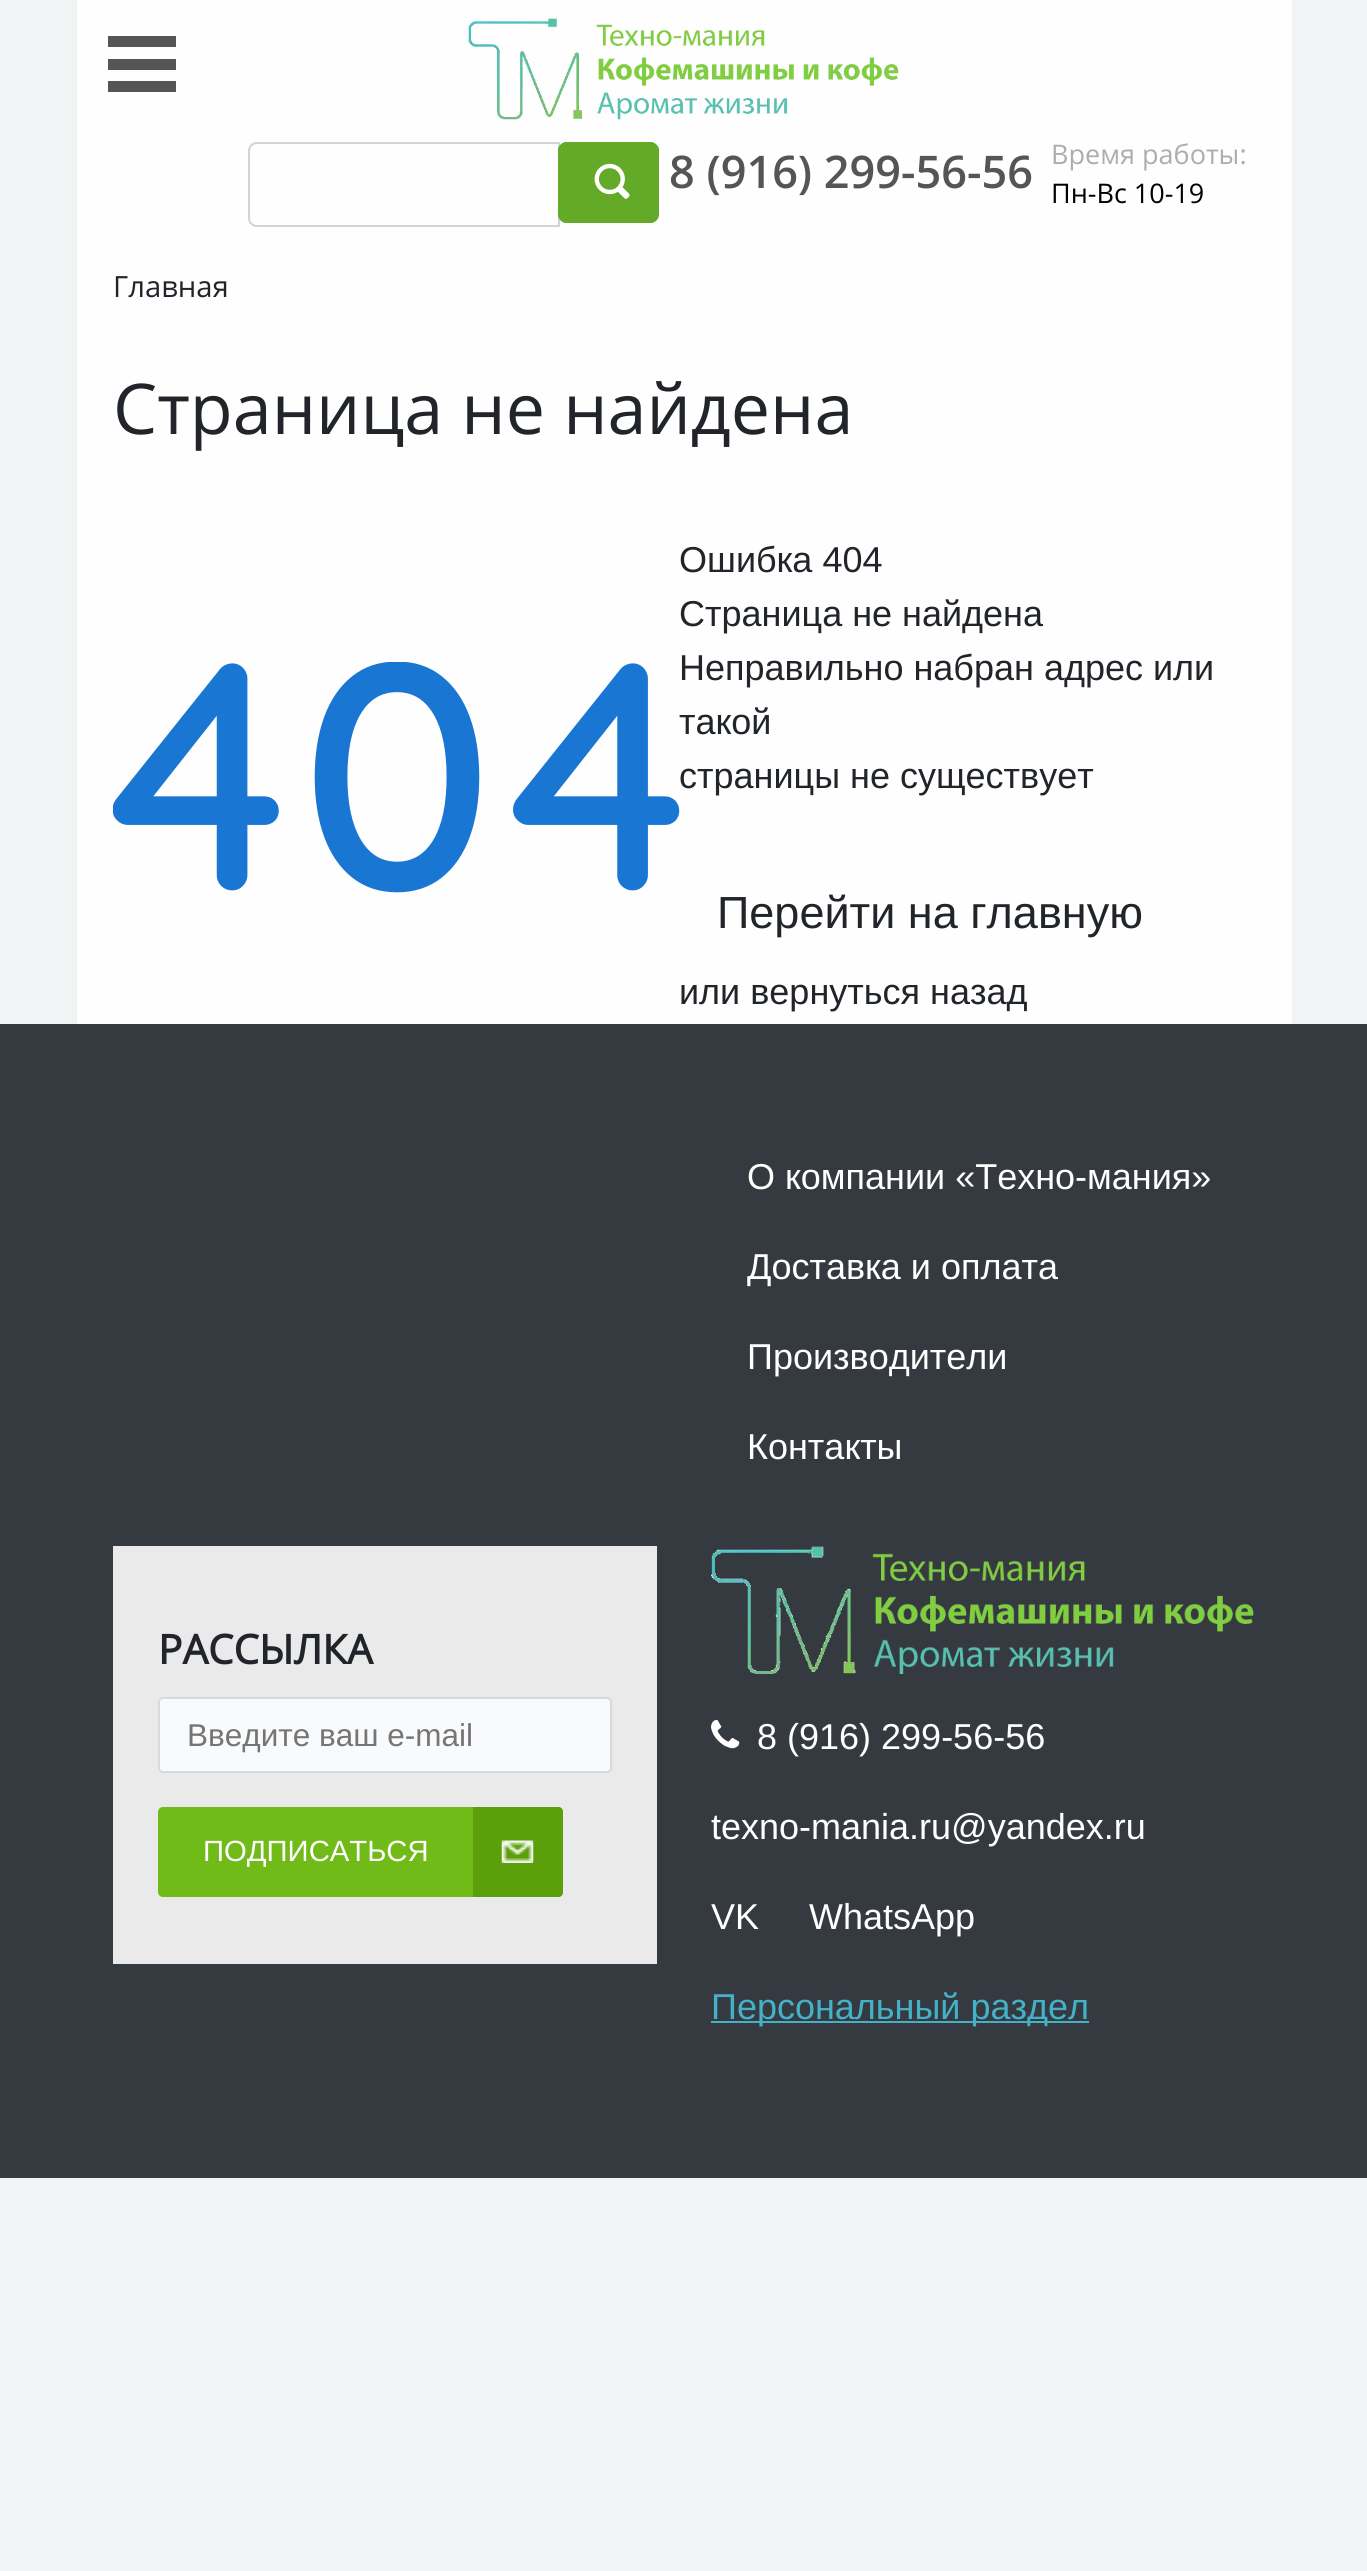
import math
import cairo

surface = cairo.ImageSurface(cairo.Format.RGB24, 1367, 2571)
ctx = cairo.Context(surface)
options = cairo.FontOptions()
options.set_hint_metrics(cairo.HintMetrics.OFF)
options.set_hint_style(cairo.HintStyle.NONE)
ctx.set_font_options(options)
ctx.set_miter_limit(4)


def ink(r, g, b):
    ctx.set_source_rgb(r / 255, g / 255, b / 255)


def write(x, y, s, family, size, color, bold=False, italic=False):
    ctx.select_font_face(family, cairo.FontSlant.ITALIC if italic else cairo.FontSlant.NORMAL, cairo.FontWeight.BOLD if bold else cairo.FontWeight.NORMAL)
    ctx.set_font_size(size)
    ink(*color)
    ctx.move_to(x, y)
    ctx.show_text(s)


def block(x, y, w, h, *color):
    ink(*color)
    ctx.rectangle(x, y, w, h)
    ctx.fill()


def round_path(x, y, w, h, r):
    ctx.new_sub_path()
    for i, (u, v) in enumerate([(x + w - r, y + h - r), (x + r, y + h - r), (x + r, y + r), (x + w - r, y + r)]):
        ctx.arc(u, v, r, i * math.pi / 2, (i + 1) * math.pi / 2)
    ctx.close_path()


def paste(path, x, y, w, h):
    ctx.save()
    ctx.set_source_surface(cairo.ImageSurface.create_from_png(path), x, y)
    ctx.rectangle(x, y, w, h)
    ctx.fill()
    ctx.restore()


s1 = dict(family="Open Sans SemiBold", size=45, color=(85, 85, 85))
s2 = dict(family="Open Sans", size=27, color=(173, 173, 173))
s3 = dict(family="Open Sans", size=27, color=(0, 0, 0))
s4 = dict(family="Open Sans", size=29.25, color=(33, 37, 41))
s5 = dict(family="Open Sans", size=70, color=(33, 37, 41))
s6 = dict(family="Liberation Sans", size=36, color=(33, 37, 41))
s7 = dict(family="Liberation Sans", size=45, color=(33, 37, 41))
s8 = dict(family="Liberation Sans", size=36, color=(255, 255, 255))
s9 = dict(family="Open Sans", size=40.5, color=(33, 37, 41), bold=True)
s10 = dict(family="Liberation Sans", size=31.5, color=(117, 117, 117))
s11 = dict(family="Liberation Sans", size=29.25, color=(255, 255, 255))
s12 = dict(family="Liberation Sans", size=36, color=(68, 177, 201))

ink(242, 243, 245)
ctx.paint()
block(77, 0, 1215, 1024, 254, 254, 255)
block(108, 36, 68, 11, 85, 85, 85)
block(108, 81, 68, 11, 85, 85, 85)
block(108, 59, 68, 11, 85, 85, 85)
paste("pic1.png", 468, 18, 431, 102)
ctx.new_path()
ctx.move_to(257, 143)
ctx.line_to(559, 143)
ctx.line_to(559, 226)
ctx.line_to(257, 226)
ctx.curve_to(252.5, 226, 249, 222.5, 249, 218)
ctx.line_to(249, 151)
ctx.curve_to(249, 146.5, 252.5, 143, 257, 143)
ctx.close_path()
ink(206, 212, 218)
ctx.stroke()
ink(99, 170, 40)
round_path(558, 142, 101, 81, 9)
ctx.fill()
paste("pic2.png", 594, 163, 36, 36)
round_path(559, 143, 99, 79, 8)
ctx.stroke()
write(669, 188, "8 (916) 299-56-56", **s1)
write(1051, 164, "Время работы:", **s2)
write(1051, 203, "Пн-Вс 10-19", **s3)
write(113, 297, "Главная", **s4)
write(113, 434, "Страница не найдена", **s5)
write(679, 734, "такой", **s6)
paste("pic3.png", 113, 662, 567, 231)
write(679, 572, "Ошибка 404", **s6)
write(679, 626, "Страница не найдена", **s6)
write(679, 680, "Неправильно набран адрес или", **s6)
write(679, 788, "страницы не существует", **s6)
write(717, 928, "Перейти на главную", **s7)
write(679, 1004, "или вернуться назад", **s6)
block(0, 1024, 1367, 1154, 52, 58, 64)
write(747, 1189, "О компании «Техно-мания»", **s8)
write(747, 1279, "Доставка и оплата", **s8)
write(747, 1369, "Производители", **s8)
write(747, 1459, "Контакты", **s8)
block(113, 1546, 544, 418, 234, 234, 235)
write(158, 1664, "РАССЫЛКА", **s9)
ink(248, 250, 252)
round_path(159, 1698, 452, 74, 4)
ctx.fill_preserve()
ink(213, 218, 220)
ctx.stroke()
write(187, 1746, "Введите ваш e-mail", **s10)
ink(112, 187, 24)
round_path(158, 1807, 405, 90, 5)
ctx.fill()
write(203, 1861, "ПОДПИСАТЬСЯ", **s11)
ink(91, 159, 11)
ctx.new_path()
ctx.move_to(473, 1807)
ctx.line_to(558, 1807)
ctx.curve_to(561, 1807, 563, 1809, 563, 1812)
ctx.line_to(563, 1892)
ctx.curve_to(563, 1895, 561, 1897, 558, 1897)
ctx.line_to(473, 1897)
ctx.close_path()
ctx.fill()
paste("pic4.png", 501, 1840, 33, 23)
paste("pic5.png", 711, 1546, 543, 128)
paste("pic6.png", 711, 1720, 29, 29)
write(757, 1749, "8 (916) 299-56-56", **s8)
write(711, 1839, "texno-mania.ru@yandex.ru", **s8)
write(711, 1929, "VK", **s8)
write(809, 1929, "WhatsApp", **s8)
block(711, 2021, 378, 2, 68, 177, 201)
write(711, 2019, "Персональный раздел", **s12)
surface.write_to_png("screenshot.png")
